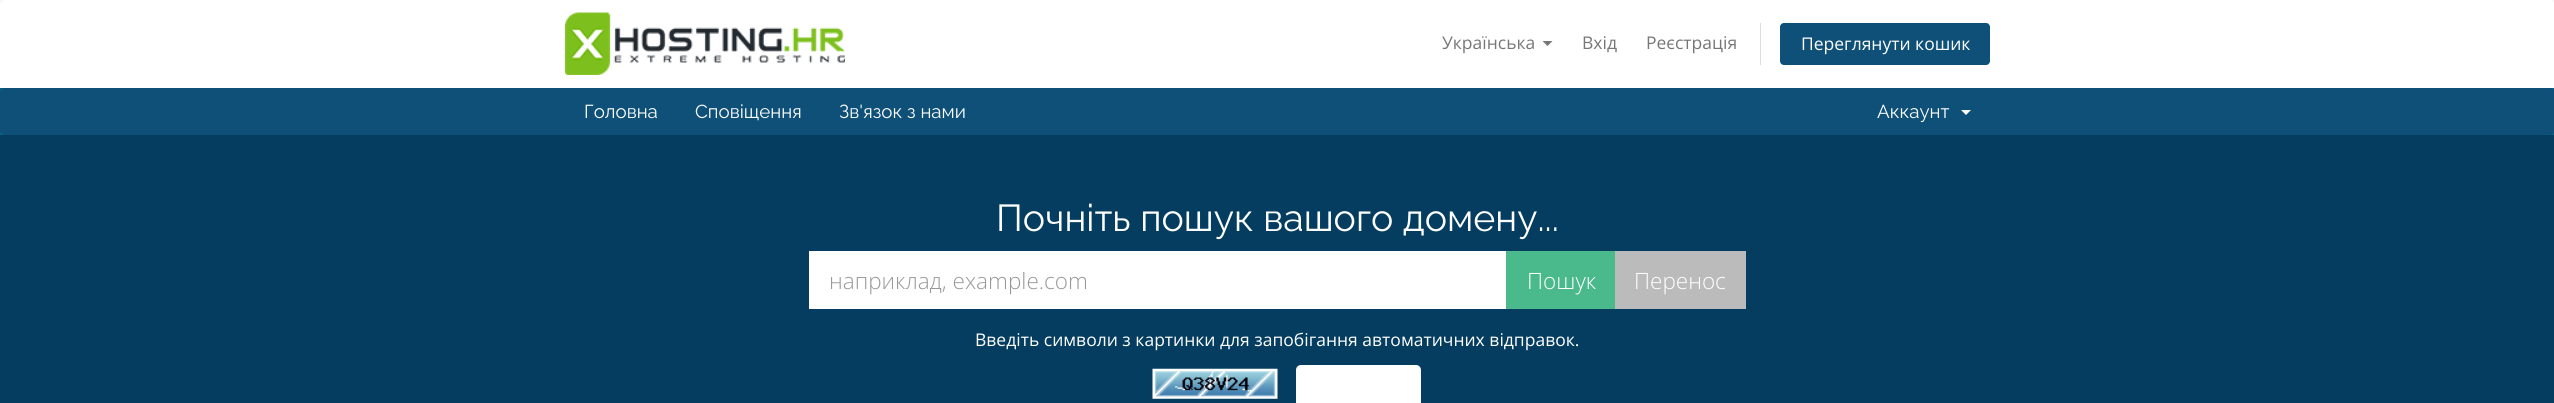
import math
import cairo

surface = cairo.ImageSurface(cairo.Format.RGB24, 2554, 403)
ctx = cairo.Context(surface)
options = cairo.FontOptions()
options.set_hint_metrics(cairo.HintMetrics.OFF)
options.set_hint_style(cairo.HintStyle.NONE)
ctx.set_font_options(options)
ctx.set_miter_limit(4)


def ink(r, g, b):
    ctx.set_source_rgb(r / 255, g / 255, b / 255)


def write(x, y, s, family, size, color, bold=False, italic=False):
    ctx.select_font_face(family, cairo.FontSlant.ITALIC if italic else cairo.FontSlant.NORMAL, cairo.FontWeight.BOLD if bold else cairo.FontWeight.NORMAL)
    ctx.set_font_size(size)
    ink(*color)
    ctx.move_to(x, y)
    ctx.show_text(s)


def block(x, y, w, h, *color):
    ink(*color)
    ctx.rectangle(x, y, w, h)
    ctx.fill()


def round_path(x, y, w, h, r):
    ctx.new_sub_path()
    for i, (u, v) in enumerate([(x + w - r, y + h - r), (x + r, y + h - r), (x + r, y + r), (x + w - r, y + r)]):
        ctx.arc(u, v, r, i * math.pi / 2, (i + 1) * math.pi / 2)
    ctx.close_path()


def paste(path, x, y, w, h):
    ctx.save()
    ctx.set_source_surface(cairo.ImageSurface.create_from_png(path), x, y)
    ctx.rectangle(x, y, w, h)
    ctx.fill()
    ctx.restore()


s1 = dict(family="Open Sans", size=17.5, color=(119, 119, 119))
s2 = dict(family="Open Sans", size=17.5, color=(255, 255, 255))
s3 = dict(family="Raleway", size=18.75, color=(255, 255, 255))
s4 = dict(family="Raleway", size=37.5, color=(255, 255, 255))
s5 = dict(family="Open Sans Light", size=22.5, color=(153, 153, 153))
s6 = dict(family="Open Sans Light", size=22.5, color=(255, 255, 255))

ink(248, 248, 248)
ctx.paint()
ink(255, 255, 255)
ctx.new_path()
ctx.move_to(6, 0)
ctx.line_to(2549, 0)
ctx.curve_to(2552.5, 0, 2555, 2.5, 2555, 6)
ctx.line_to(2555, 88)
ctx.line_to(0, 88)
ctx.line_to(0, 6)
ctx.curve_to(0, 2.5, 2.5, 0, 6, 0)
ctx.close_path()
ctx.fill()
paste("pic1.png", 565, 12, 280, 63)
write(1442, 49, "Українська", **s1)
ctx.new_path()
ctx.move_to(1542.5, 41)
ctx.line_to(1552.5, 41)
ctx.line_to(1547.5, 46)
ctx.close_path()
ctx.fill()
write(1582, 49, "Вхід", **s1)
write(1646, 49, "Реєстрація", **s1)
block(1760, 23, 1, 42, 221, 221, 221)
ink(14, 80, 119)
round_path(1780, 23, 210, 42, 4)
ctx.fill()
write(1801, 50, "Переглянути кошик", **s2)
block(0, 88, 2554, 47, 0, 102, 135)
ink(14, 80, 119)
round_path(0, 88, 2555, 47, 5)
ctx.fill()
write(584, 118, "Головна", **s3)
write(695, 118, "Сповіщення", **s3)
write(839, 118, "Зв'язок з нами", **s3)
write(1877, 118, "Аккаунт", **s3)
ctx.new_path()
ctx.move_to(1961, 110)
ctx.line_to(1971, 110)
ctx.line_to(1966, 115)
ctx.close_path()
ctx.fill()
block(0, 135, 2554, 268, 4, 61, 95)
write(996, 231, "Почніть пошук вашого домену...", **s4)
block(809, 251, 697, 58, 255, 255, 255)
write(829, 289, "наприклад, example.com", **s5)
block(1506, 251, 109, 58, 74, 185, 139)
write(1527, 289, "Пошук", **s6)
block(1615, 251, 131, 58, 187, 187, 187)
write(1634, 289, "Перенос", **s6)
write(975, 346, "Введіть символи з картинки для запобігання автоматичних відправок.", **s2)
paste("pic2.png", 1152, 368, 126, 31)
round_path(1296, 365, 125, 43, 5)
ctx.fill()
surface.write_to_png("screenshot.png")
